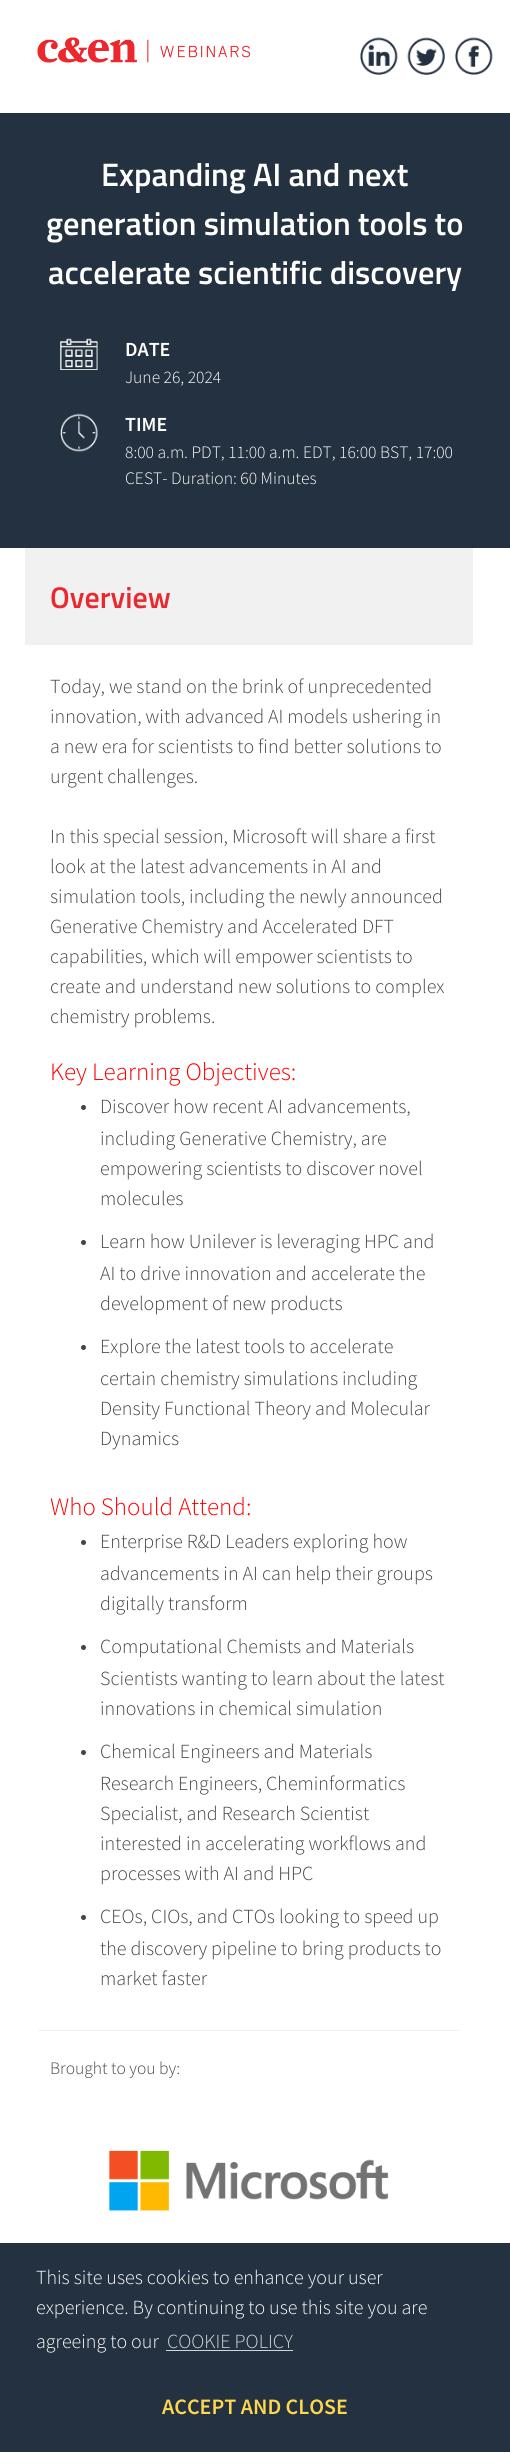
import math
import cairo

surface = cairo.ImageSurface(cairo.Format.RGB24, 510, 2452)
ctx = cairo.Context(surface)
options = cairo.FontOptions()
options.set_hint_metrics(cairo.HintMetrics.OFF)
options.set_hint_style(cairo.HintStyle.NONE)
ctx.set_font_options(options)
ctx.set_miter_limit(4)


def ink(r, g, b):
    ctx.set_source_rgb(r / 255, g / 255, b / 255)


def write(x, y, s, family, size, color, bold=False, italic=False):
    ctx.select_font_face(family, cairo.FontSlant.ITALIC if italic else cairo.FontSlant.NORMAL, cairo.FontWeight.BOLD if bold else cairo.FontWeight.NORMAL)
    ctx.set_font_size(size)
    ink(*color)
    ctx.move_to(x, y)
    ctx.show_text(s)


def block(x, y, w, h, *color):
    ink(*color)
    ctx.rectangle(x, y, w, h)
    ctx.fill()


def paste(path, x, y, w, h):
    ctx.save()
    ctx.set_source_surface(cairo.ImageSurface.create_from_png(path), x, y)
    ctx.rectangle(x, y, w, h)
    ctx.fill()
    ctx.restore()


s1 = dict(family="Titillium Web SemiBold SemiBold", size=32.5, color=(255, 255, 255))
s2 = dict(family="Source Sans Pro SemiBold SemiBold", size=20, color=(255, 255, 255))
s3 = dict(family="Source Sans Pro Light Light", size=17.5, color=(255, 255, 255))
s4 = dict(family="Titillium Web SemiBold SemiBold", size=30, color=(236, 39, 45))
s5 = dict(family="Source Sans Pro Light Light", size=20, color=(68, 68, 68))
s6 = dict(family="Source Sans Pro Light Light", size=25, color=(255, 0, 0))
s7 = dict(family="Source Sans Pro Light Light", size=17.5, color=(68, 68, 68))
s8 = dict(family="Source Sans Pro Light Light", size=20, color=(255, 255, 255))
s9 = dict(family="Source Sans Pro Light Light", size=20, color=(211, 214, 217))
s10 = dict(family="Source Sans Pro SemiBold SemiBold", size=22, color=(253, 215, 77))

ink(255, 255, 255)
ctx.paint()
paste("pic1.png", 37, 37, 213, 26)
paste("pic2.png", 360, 37, 38, 38)
paste("pic3.png", 407, 37, 38, 38)
paste("pic4.png", 455, 37, 38, 38)
block(0, 113, 510, 435, 36, 49, 64)
write(101, 186, "Expanding AI and next", **s1)
write(46, 235, "generation simulation tools to", **s1)
write(48, 284, "accelerate scientific discovery", **s1)
paste("pic5.png", 60, 338, 38, 32)
write(125, 356, "DATE", **s2)
write(125, 383, "June 26, 2024", **s3)
paste("pic6.png", 60, 413, 38, 39)
write(125, 431, "TIME", **s2)
write(125, 458, "8:00 a.m. PDT, 11:00 a.m. EDT, 16:00 BST, 17:00", **s3)
write(125, 484, "CEST- Duration: 60 Minutes", **s3)
block(25, 548, 448, 97, 241, 241, 241)
write(50, 608, "Overview", **s4)
write(50, 693, "Today, we stand on the brink of unprecedented", **s5)
write(50, 723, "innovation, with advanced AI models ushering in", **s5)
write(50, 753, "a new era for scientists to find better solutions to", **s5)
write(50, 783, "urgent challenges.", **s5)
write(50, 843, "In this special session, Microsoft will share a first", **s5)
write(50, 873, "look at the latest advancements in AI and", **s5)
write(50, 903, "simulation tools, including the newly announced", **s5)
write(50, 933, "Generative Chemistry and Accelerated DFT", **s5)
write(50, 963, "capabilities, which will empower scientists to", **s5)
write(50, 993, "create and understand new solutions to complex", **s5)
write(50, 1023, "chemistry problems.", **s5)
write(50, 1080, "Key Learning Objectives:", **s6)
ink(68, 68, 68)
ctx.new_path()
ctx.arc(83.5, 1107.5, 2.5, 0, 2 * math.pi)
ctx.fill()
write(100, 1113, "Discover how recent AI advancements,", **s5)
write(100, 1145, "including Generative Chemistry, are", **s5)
write(100, 1175, "empowering scientists to discover novel", **s5)
write(100, 1205, "molecules", **s5)
ctx.new_path()
ctx.arc(83.5, 1242.5, 2.5, 0, 2 * math.pi)
ctx.fill()
write(100, 1248, "Learn how Unilever is leveraging HPC and", **s5)
write(100, 1280, "AI to drive innovation and accelerate the", **s5)
write(100, 1310, "development of new products", **s5)
ctx.new_path()
ctx.arc(83.5, 1347.5, 2.5, 0, 2 * math.pi)
ctx.fill()
write(100, 1353, "Explore the latest tools to accelerate", **s5)
write(100, 1385, "certain chemistry simulations including", **s5)
write(100, 1415, "Density Functional Theory and Molecular", **s5)
write(100, 1445, "Dynamics", **s5)
write(50, 1515, "Who Should Attend:", **s6)
ink(68, 68, 68)
ctx.new_path()
ctx.arc(83.5, 1542.5, 2.5, 0, 2 * math.pi)
ctx.fill()
write(100, 1548, "Enterprise R&D Leaders exploring how", **s5)
write(100, 1580, "advancements in AI can help their groups", **s5)
write(100, 1610, "digitally transform", **s5)
ctx.new_path()
ctx.arc(83.5, 1647.5, 2.5, 0, 2 * math.pi)
ctx.fill()
write(100, 1653, "Computational Chemists and Materials", **s5)
write(100, 1685, "Scientists wanting to learn about the latest", **s5)
write(100, 1715, "innovations in chemical simulation", **s5)
ctx.new_path()
ctx.arc(83.5, 1752.5, 2.5, 0, 2 * math.pi)
ctx.fill()
write(100, 1758, "Chemical Engineers and Materials", **s5)
write(100, 1790, "Research Engineers, Cheminformatics", **s5)
write(100, 1820, "Specialist, and Research Scientist", **s5)
write(100, 1850, "interested in accelerating workflows and", **s5)
write(100, 1880, "processes with AI and HPC", **s5)
ctx.new_path()
ctx.arc(83.5, 1917.5, 2.5, 0, 2 * math.pi)
ctx.fill()
write(100, 1923, "CEOs, CIOs, and CTOs looking to speed up", **s5)
write(100, 1955, "the discovery pipeline to bring products to", **s5)
write(100, 1985, "market faster", **s5)
block(38, 2030, 422, 1, 241, 241, 241)
write(50, 2074, "Brought to you by:", **s7)
paste("pic7.png", 108, 2150, 281, 61)
block(0, 2243, 510, 209, 36, 49, 64)
write(36, 2284, "This site uses cookies to enhance your user", **s8)
write(36, 2314, "experience. By continuing to use this site you are", **s8)
write(36, 2348, "agreeing to our", **s8)
write(167, 2348, "COOKIE POLICY", **s9)
block(166, 2350, 127, 1, 211, 214, 217)
write(162, 2414, "ACCEPT AND CLOSE", **s10)
surface.write_to_png("screenshot.png")
